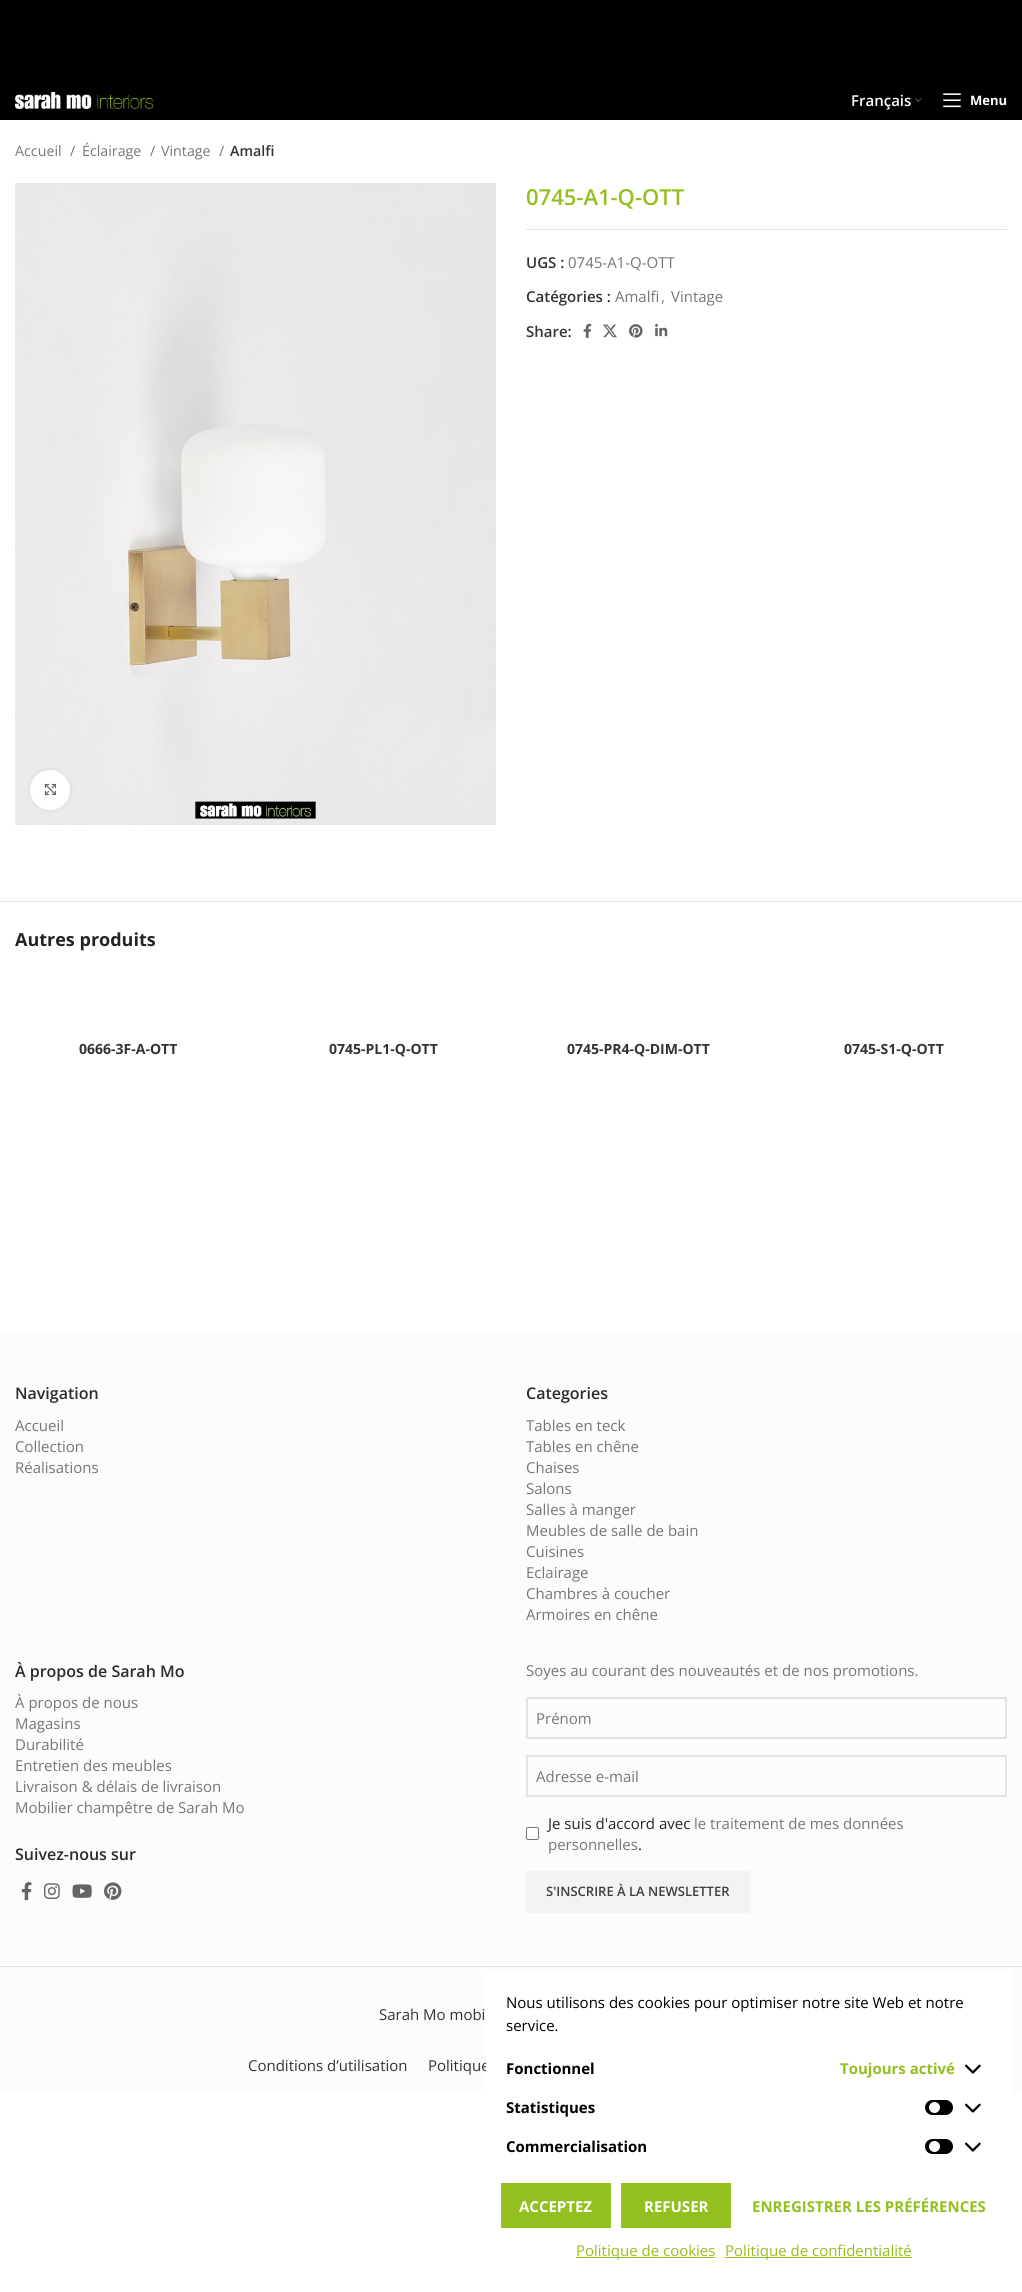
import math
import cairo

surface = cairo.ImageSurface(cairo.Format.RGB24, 1022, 2292)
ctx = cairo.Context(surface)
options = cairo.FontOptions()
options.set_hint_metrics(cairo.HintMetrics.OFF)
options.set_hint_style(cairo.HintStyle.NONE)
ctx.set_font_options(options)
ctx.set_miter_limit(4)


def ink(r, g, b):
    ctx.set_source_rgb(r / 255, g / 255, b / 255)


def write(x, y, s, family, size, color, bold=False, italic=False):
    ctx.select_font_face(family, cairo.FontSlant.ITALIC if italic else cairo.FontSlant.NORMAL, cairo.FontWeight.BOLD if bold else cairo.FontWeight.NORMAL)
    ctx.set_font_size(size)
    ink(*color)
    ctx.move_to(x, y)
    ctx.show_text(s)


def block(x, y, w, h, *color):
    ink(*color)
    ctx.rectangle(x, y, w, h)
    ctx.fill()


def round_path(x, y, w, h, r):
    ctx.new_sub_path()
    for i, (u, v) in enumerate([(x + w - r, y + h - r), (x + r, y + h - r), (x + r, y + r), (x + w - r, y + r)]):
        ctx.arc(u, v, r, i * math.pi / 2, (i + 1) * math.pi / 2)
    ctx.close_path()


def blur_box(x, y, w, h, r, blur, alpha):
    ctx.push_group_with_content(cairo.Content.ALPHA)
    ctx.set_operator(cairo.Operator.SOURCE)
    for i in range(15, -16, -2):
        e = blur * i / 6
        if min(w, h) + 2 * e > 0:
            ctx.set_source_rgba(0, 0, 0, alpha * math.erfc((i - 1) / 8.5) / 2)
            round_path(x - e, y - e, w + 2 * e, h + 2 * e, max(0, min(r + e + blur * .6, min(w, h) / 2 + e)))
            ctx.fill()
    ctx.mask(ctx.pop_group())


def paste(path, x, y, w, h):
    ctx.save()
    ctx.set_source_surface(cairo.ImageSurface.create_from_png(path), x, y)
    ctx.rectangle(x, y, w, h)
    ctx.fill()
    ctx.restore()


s1 = dict(family="Open Sans SemiBold", size=15, color=(255, 255, 255))
s2 = dict(family="Open Sans", size=13, color=(255, 255, 255), bold=True)
s3 = dict(family="Open Sans", size=14.25, color=(118, 118, 118))
s4 = dict(family="Open Sans SemiBold", size=14.25, color=(51, 51, 51))
s5 = dict(family="Open Sans SemiBold", size=22, color=(147, 192, 31))
s6 = dict(family="Open Sans SemiBold", size=15, color=(51, 51, 51))
s7 = dict(family="Open Sans", size=15, color=(118, 118, 118))
s8 = dict(family="Open Sans", size=18, color=(36, 36, 36), bold=True)
s9 = dict(family="Open Sans", size=14, color=(51, 51, 51), bold=True)
s10 = dict(family="Open Sans SemiBold", size=16, color=(45, 42, 42))
s11 = dict(family="Open Sans", size=15, color=(36, 36, 36))
s12 = dict(family="Open Sans SemiBold", size=13, color=(62, 62, 62))
s13 = dict(family="Open Sans", size=15, color=(51, 51, 51))
s14 = dict(family="Open Sans", size=15, color=(0, 0, 0))
s15 = dict(family="Open Sans", size=15, color=(0, 0, 0), bold=True)
s16 = dict(family="Open Sans", size=15, color=(147, 192, 31), bold=True)
s17 = dict(family="Open Sans", size=15, color=(255, 255, 255), bold=True)
s18 = dict(family="Open Sans", size=15, color=(147, 192, 31))

ink(255, 255, 255)
ctx.paint()
block(0, 0, 1022, 120, 0, 0, 0)
paste("pic1.png", 15, 92, 138, 17)
write(851, 106, "Français", **s1)
paste("pic2.png", 915, 98, 7, 4)
paste("pic3.png", 943, 93, 18, 15)
write(970, 105, "Menu", **s2)
write(15, 156, "Accueil", **s3)
write(70, 156, "/", **s3)
write(82, 156, "Éclairage", **s3)
write(150, 156, "/", **s3)
write(161, 156, "Vintage", **s3)
write(219, 156, "/", **s3)
write(230, 156, "Amalfi", **s4)
paste("pic4.png", 15, 183, 481, 642)
ink(0, 0, 0)
blur_box(30, 770, 40, 40, 20, 2.5, 0.08)
ink(255, 255, 255)
ctx.arc(50, 790, 20, 0, 2 * math.pi)
ctx.fill()
paste("pic5.png", 44, 783, 12, 13)
write(526, 205, "0745-A1-Q-OTT", **s5)
block(526, 229, 481, 1, 228, 228, 228)
write(526, 268, "UGS :", **s6)
write(568, 268, "0745-A1-Q-OTT", **s7)
write(526, 302, "Catégories :", **s6)
write(615, 302, "Amalfi", **s7)
write(661, 302, ",", **s7)
write(671, 302, "Vintage", **s7)
write(526, 337, "Share:", **s6)
paste("pic6.png", 583, 323, 9, 15)
paste("pic7.png", 603, 324, 14, 14)
paste("pic8.png", 629, 324, 14, 14)
paste("pic9.png", 655, 323, 13, 14)
block(0, 901, 1022, 1, 228, 228, 228)
write(15, 946, "Autres produits", **s8)
write(79, 1054, "0666-3F-A-OTT", **s9)
write(329, 1054, "0745-PL1-Q-OTT", **s9)
write(567, 1054, "0745-PR4-Q-DIM-OTT", **s9)
write(844, 1054, "0745-S1-Q-OTT", **s9)
block(0, 1332, 1022, 762, 252, 252, 252)
write(15, 1399, "Navigation", **s10)
write(15, 1431, "Accueil", **s7)
write(15, 1452, "Collection", **s7)
write(15, 1473, "Réalisations", **s7)
write(526, 1399, "Categories", **s10)
write(526, 1431, "Tables en teck", **s7)
write(526, 1452, "Tables en chêne", **s7)
write(526, 1473, "Chaises", **s7)
write(526, 1494, "Salons", **s7)
write(526, 1515, "Salles à manger", **s7)
write(526, 1536, "Meubles de salle de bain", **s7)
write(526, 1557, "Cuisines", **s7)
write(526, 1578, "Eclairage", **s7)
write(526, 1599, "Chambres à coucher", **s7)
write(526, 1620, "Armoires en chêne", **s7)
write(15, 1677, "À propos de Sarah Mo", **s10)
write(15, 1708, "À propos de nous", **s7)
write(15, 1729, "Magasins", **s7)
write(15, 1750, "Durabilité", **s7)
write(15, 1771, "Entretien des meubles", **s7)
write(15, 1792, "Livraison & délais de livraison", **s7)
write(15, 1813, "Mobilier champêtre de Sarah Mo", **s7)
write(15, 1860, "Suivez-nous sur", **s10)
paste("pic10.png", 21, 1882, 11, 19)
paste("pic11.png", 44, 1883, 16, 16)
paste("pic12.png", 72, 1884, 20, 14)
paste("pic13.png", 104, 1882, 18, 18)
write(526, 1676, "Soyes au courant des nouveautés et de nos promotions.", **s7)
ctx.rectangle(527, 1698, 479, 40)
ink(227, 227, 227)
ctx.stroke()
write(536, 1724, "Prénom", **s7)
ctx.rectangle(527, 1756, 479, 40)
ink(227, 227, 227)
ctx.stroke()
write(536, 1782, "Adresse e-mail", **s7)
ink(255, 255, 255)
round_path(526.5, 1827.5, 12, 12, 1.5)
ctx.fill_preserve()
ink(118, 118, 118)
ctx.set_line_width(1)
ctx.stroke()
write(548, 1829, "Je suis d'accord avec", **s11)
write(694, 1829, "le traitement de mes données", **s7)
write(548, 1850, "personnelles", **s7)
write(638, 1850, ".", **s11)
block(526, 1871, 224, 42, 243, 243, 243)
write(546, 1896, "S'INSCRIRE À LA NEWSLETTER", **s12)
block(0, 1966, 1022, 1, 225, 225, 225)
write(379, 2020, "Sarah Mo mobi", **s13)
write(248, 2071, "Conditions d’utilisation", **s13)
write(428, 2071, "Politique", **s13)
block(486, 1971, 526, 123, 255, 255, 255)
write(506, 2008, "Nous utilisons des cookies pour optimiser notre site Web et notre", **s14)
write(506, 2031, "service.", **s14)
write(506, 2074, "Fonctionnel", **s15)
write(840, 2074, "Toujours activé", **s16)
paste("pic14.png", 965, 2064, 16, 10)
write(506, 2113, "Statistiques", **s15)
round_path(925, 2100, 28, 15, 7.5)
ctx.fill()
ink(255, 255, 255)
ctx.arc(934.5, 2107.5, 5.5, 0, 2 * math.pi)
ctx.fill()
paste("pic14.png", 965, 2103, 16, 10)
write(506, 2152, "Commercialisation", **s15)
round_path(925, 2139, 28, 15, 7.5)
ctx.fill()
ink(255, 255, 255)
ctx.arc(934.5, 2146.5, 5.5, 0, 2 * math.pi)
ctx.fill()
paste("pic14.png", 965, 2142, 16, 10)
block(501, 2183, 110, 45, 147, 192, 31)
write(519, 2212, "ACCEPTEZ", **s17)
block(621, 2183, 110, 45, 147, 192, 31)
write(644, 2212, "REFUSER", **s17)
write(752, 2212, "ENREGISTRER LES PRÉFÉRENCES", **s16)
block(576, 2257, 139, 1, 147, 192, 31)
write(576, 2256, "Politique de cookies", **s18)
block(725, 2257, 187, 1, 147, 192, 31)
write(725, 2256, "Politique de confidentialité", **s18)
surface.write_to_png("screenshot.png")
